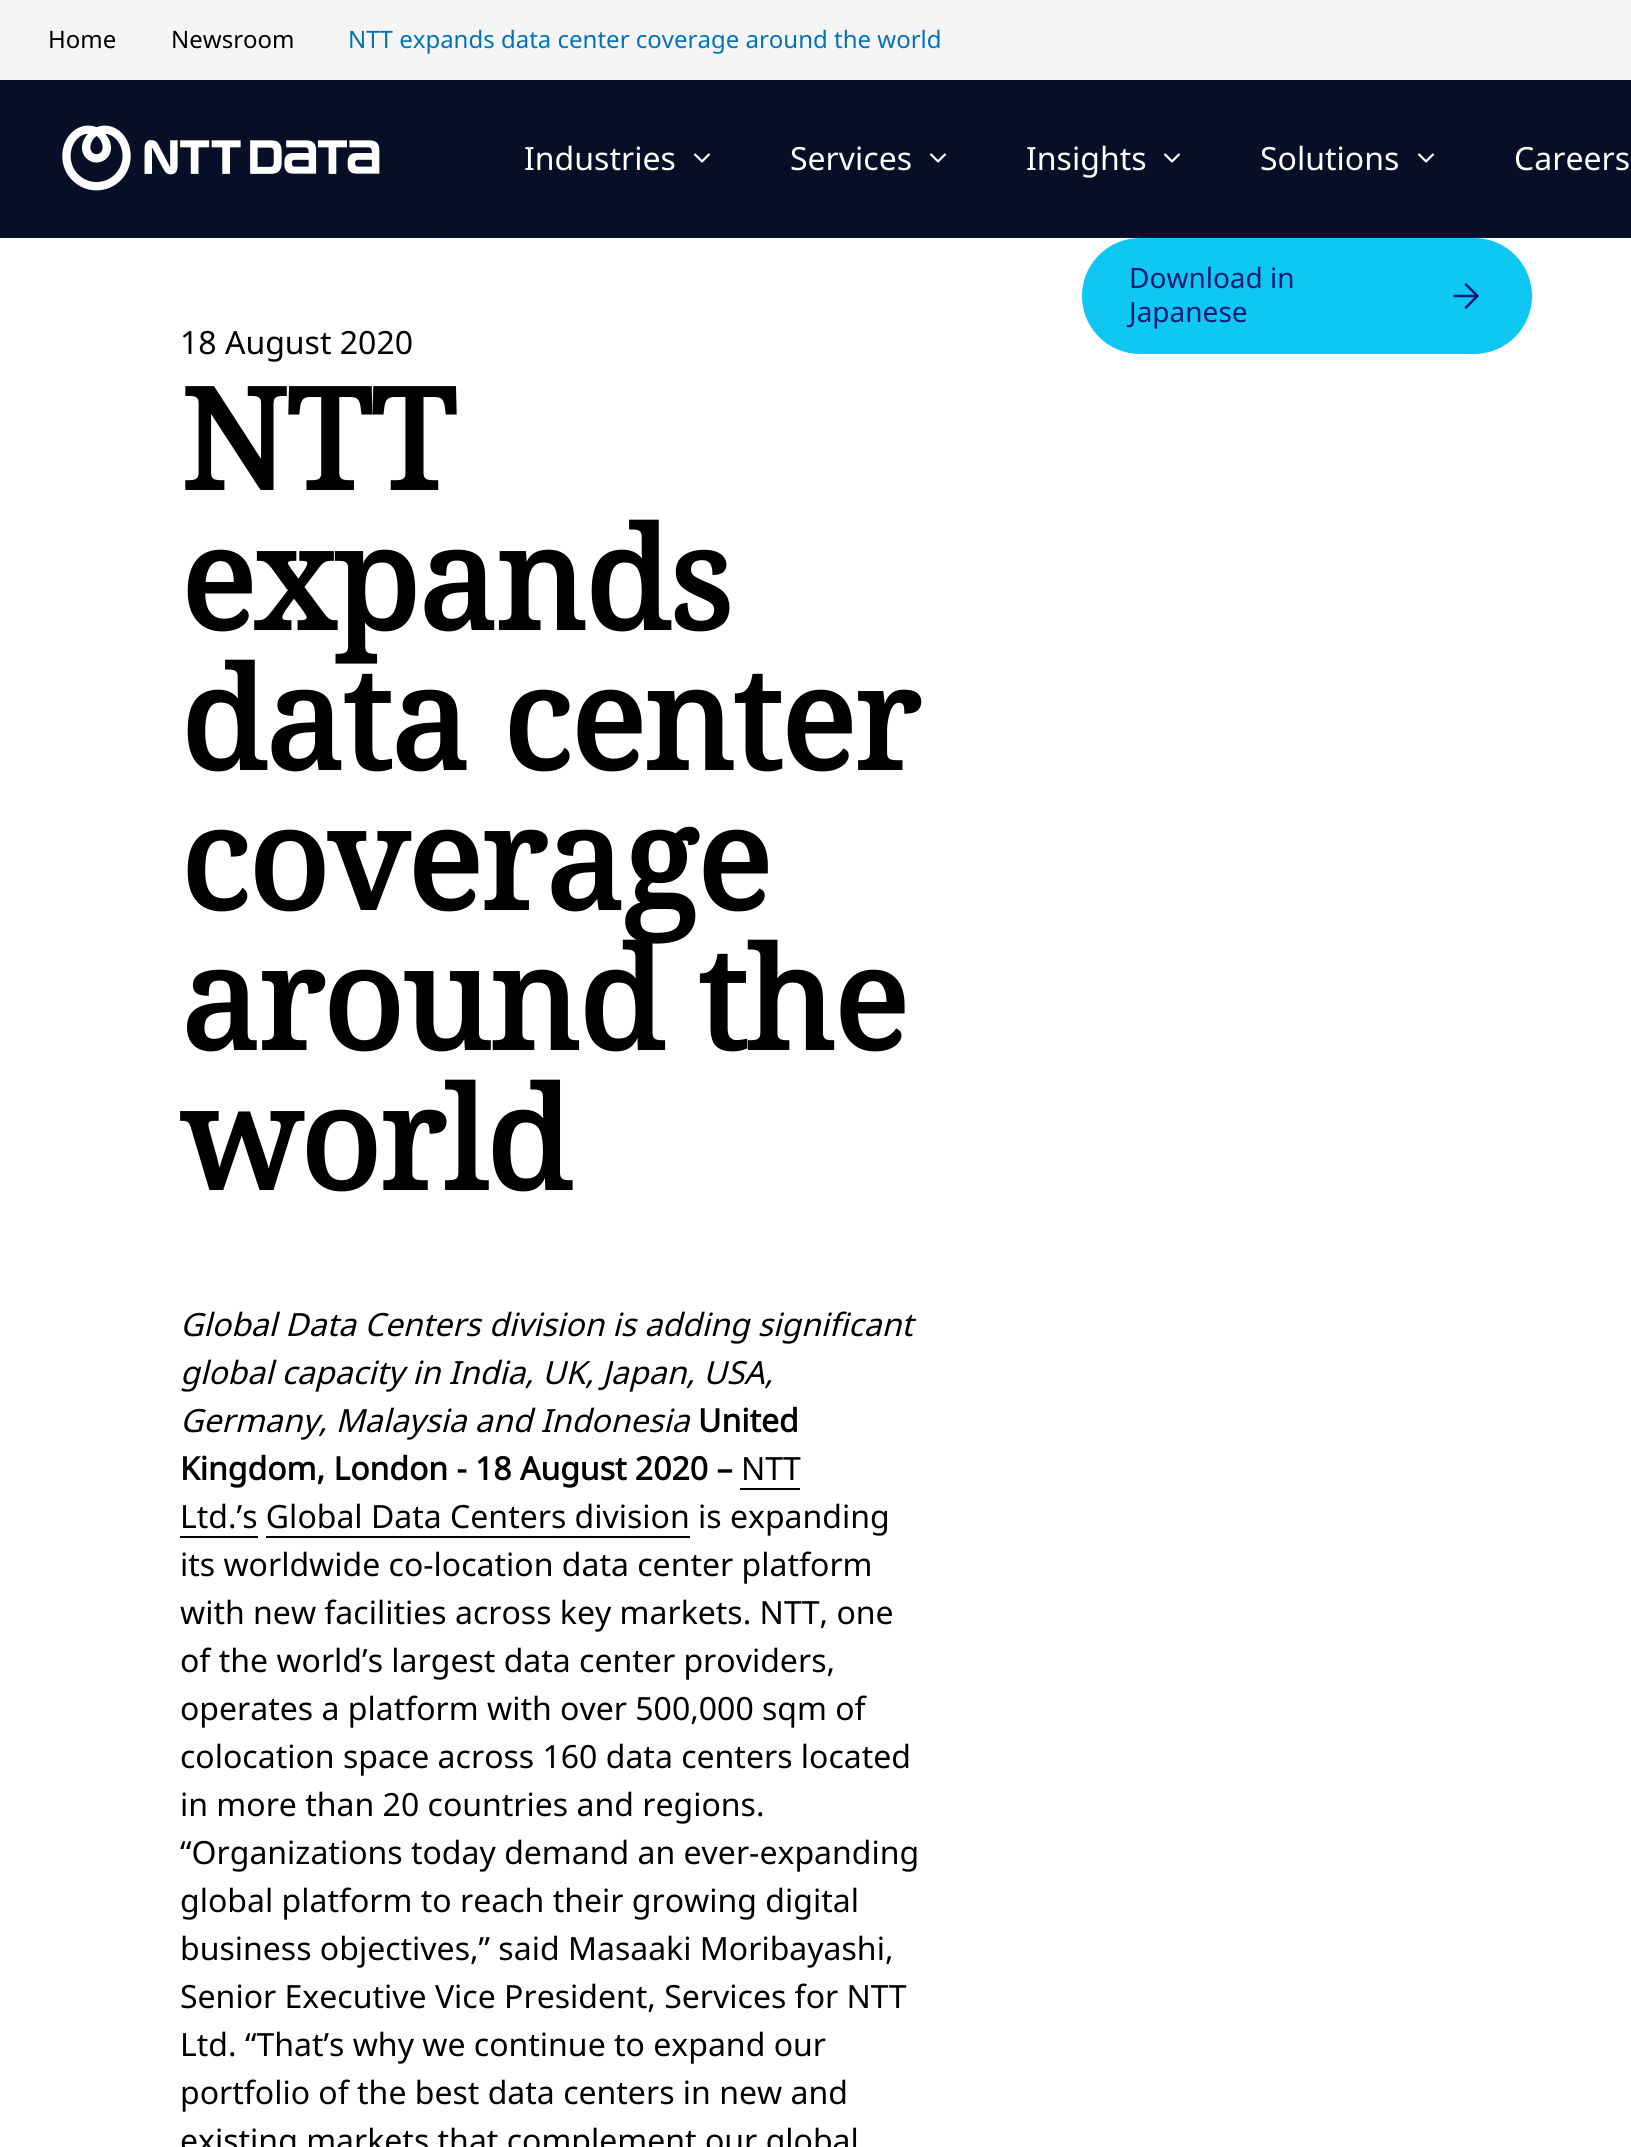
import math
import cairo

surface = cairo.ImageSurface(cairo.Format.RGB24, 1631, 2147)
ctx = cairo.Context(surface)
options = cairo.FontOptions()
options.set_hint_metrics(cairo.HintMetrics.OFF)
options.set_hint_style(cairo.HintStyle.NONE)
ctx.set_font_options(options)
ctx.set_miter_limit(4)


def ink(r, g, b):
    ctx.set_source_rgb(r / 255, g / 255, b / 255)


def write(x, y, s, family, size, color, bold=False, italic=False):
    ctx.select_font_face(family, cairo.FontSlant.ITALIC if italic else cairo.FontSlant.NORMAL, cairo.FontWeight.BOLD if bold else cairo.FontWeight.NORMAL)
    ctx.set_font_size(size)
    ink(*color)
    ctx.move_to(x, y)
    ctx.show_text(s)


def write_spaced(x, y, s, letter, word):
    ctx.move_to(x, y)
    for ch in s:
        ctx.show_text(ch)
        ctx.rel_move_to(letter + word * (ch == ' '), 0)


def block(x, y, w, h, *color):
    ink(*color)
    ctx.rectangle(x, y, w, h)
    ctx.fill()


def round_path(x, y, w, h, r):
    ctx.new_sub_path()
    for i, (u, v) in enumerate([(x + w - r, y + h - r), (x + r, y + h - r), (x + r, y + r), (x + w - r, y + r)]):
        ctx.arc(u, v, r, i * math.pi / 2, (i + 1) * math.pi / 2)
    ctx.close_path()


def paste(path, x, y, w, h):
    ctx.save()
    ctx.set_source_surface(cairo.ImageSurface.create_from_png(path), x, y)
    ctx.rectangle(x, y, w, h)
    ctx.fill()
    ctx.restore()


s1 = dict(family="Noto Sans", size=24, color=(0, 0, 0))
s2 = dict(family="Noto Sans", size=24, color=(0, 114, 188))
s3 = dict(family="Noto Sans", size=32, color=(255, 255, 255))
s4 = dict(family="Noto Sans", size=28, color=(0, 25, 115))
s5 = dict(family="Noto Sans", size=32, color=(0, 0, 0))
s6 = dict(family="Noto Sans", size=32, color=(0, 0, 0), italic=True)
s7 = dict(family="Noto Sans", size=32, color=(0, 0, 0), bold=True)

ink(255, 255, 255)
ctx.paint()
block(0, 0, 1631, 80, 245, 245, 245)
write(48, 48, "Home", **s1)
write(171, 48, "Newsroom", **s1)
write(348, 48, "NTT expands data center coverage around the world", **s2)
block(0, 80, 1631, 156, 7, 15, 38)
block(0, 236, 1631, 2, 6, 17, 53)
block(442, 80, 2, 156, 6, 17, 53)
paste("pic1.png", 62, 125, 318, 66)
write(524, 170, "Industries", **s3)
paste("pic2.png", 694, 153, 16, 10)
write(790, 170, "Services", **s3)
paste("pic2.png", 930, 153, 16, 10)
write(1026, 170, "Insights", **s3)
paste("pic2.png", 1164, 153, 16, 10)
write(1260, 170, "Solutions", **s3)
paste("pic2.png", 1418, 153, 16, 10)
write(1514, 170, "Careers", **s3)
ink(15, 200, 242)
round_path(1082, 238, 450, 116, 58)
ctx.fill()
write(1129, 288, "Download in", **s4)
write(1129, 322, "Japanese", **s4)
ctx.new_path()
ctx.move_to(1454.5, 296)
ctx.line_to(1477.5, 296)
ctx.move_to(1466, 284.5)
ctx.line_to(1477.5, 296)
ctx.line_to(1466, 307.5)
ink(1, 25, 114)
ctx.set_line_width(2.5)
ctx.set_line_cap(cairo.LineCap.ROUND)
ctx.set_line_join(cairo.LineJoin.ROUND)
ctx.stroke()
write(180, 354, "18 August 2020", **s5)
ctx.select_font_face("Noto Serif", cairo.FontSlant.NORMAL, cairo.FontWeight.BOLD)
ctx.set_font_size(140)
write_spaced(180, 490, "NTT", -1.4, 0)
write_spaced(180, 630, "expands", -1.4, 0)
write_spaced(180, 770, "data center", -1.4, 0)
write_spaced(180, 910, "coverage", -1.4, 0)
write_spaced(180, 1050, "around the", -1.4, 0)
write_spaced(180, 1190, "world", -1.4, 0)
write(180, 1336, "Global Data Centers division is adding significant", **s6)
write(180, 1384, "global capacity in India, UK, Japan, USA,", **s6)
write(180, 1432, "Germany, Malaysia and Indonesia", **s6)
write(698, 1432, "United", **s7)
write(180, 1480, "Kingdom, London - 18 August 2020 –", **s7)
write(741, 1480, "NTT", **s5)
block(740, 1488, 60, 2, 0, 0, 0)
write(180, 1528, "Ltd.’s Global Data Centers division", **s5)
block(180, 1536, 78, 2, 0, 0, 0)
write(698, 1528, "is expanding", **s5)
block(266, 1536, 424, 2, 0, 0, 0)
write(180, 1576, "its worldwide co-location data center platform", **s5)
write(180, 1624, "with new facilities across key markets. NTT, one", **s5)
write(180, 1672, "of the world’s largest data center providers,", **s5)
write(180, 1720, "operates a platform with over 500,000 sqm of", **s5)
write(180, 1768, "colocation space across 160 data centers located", **s5)
write(180, 1816, "in more than 20 countries and regions.", **s5)
write(180, 1864, "“Organizations today demand an ever-expanding", **s5)
write(180, 1912, "global platform to reach their growing digital", **s5)
write(180, 1960, "business objectives,” said Masaaki Moribayashi,", **s5)
write(180, 2008, "Senior Executive Vice President, Services for NTT", **s5)
write(180, 2056, "Ltd. “That’s why we continue to expand our", **s5)
write(180, 2104, "portfolio of the best data centers in new and", **s5)
write(180, 2152, "existing markets that complement our global", **s5)
surface.write_to_png("screenshot.png")
